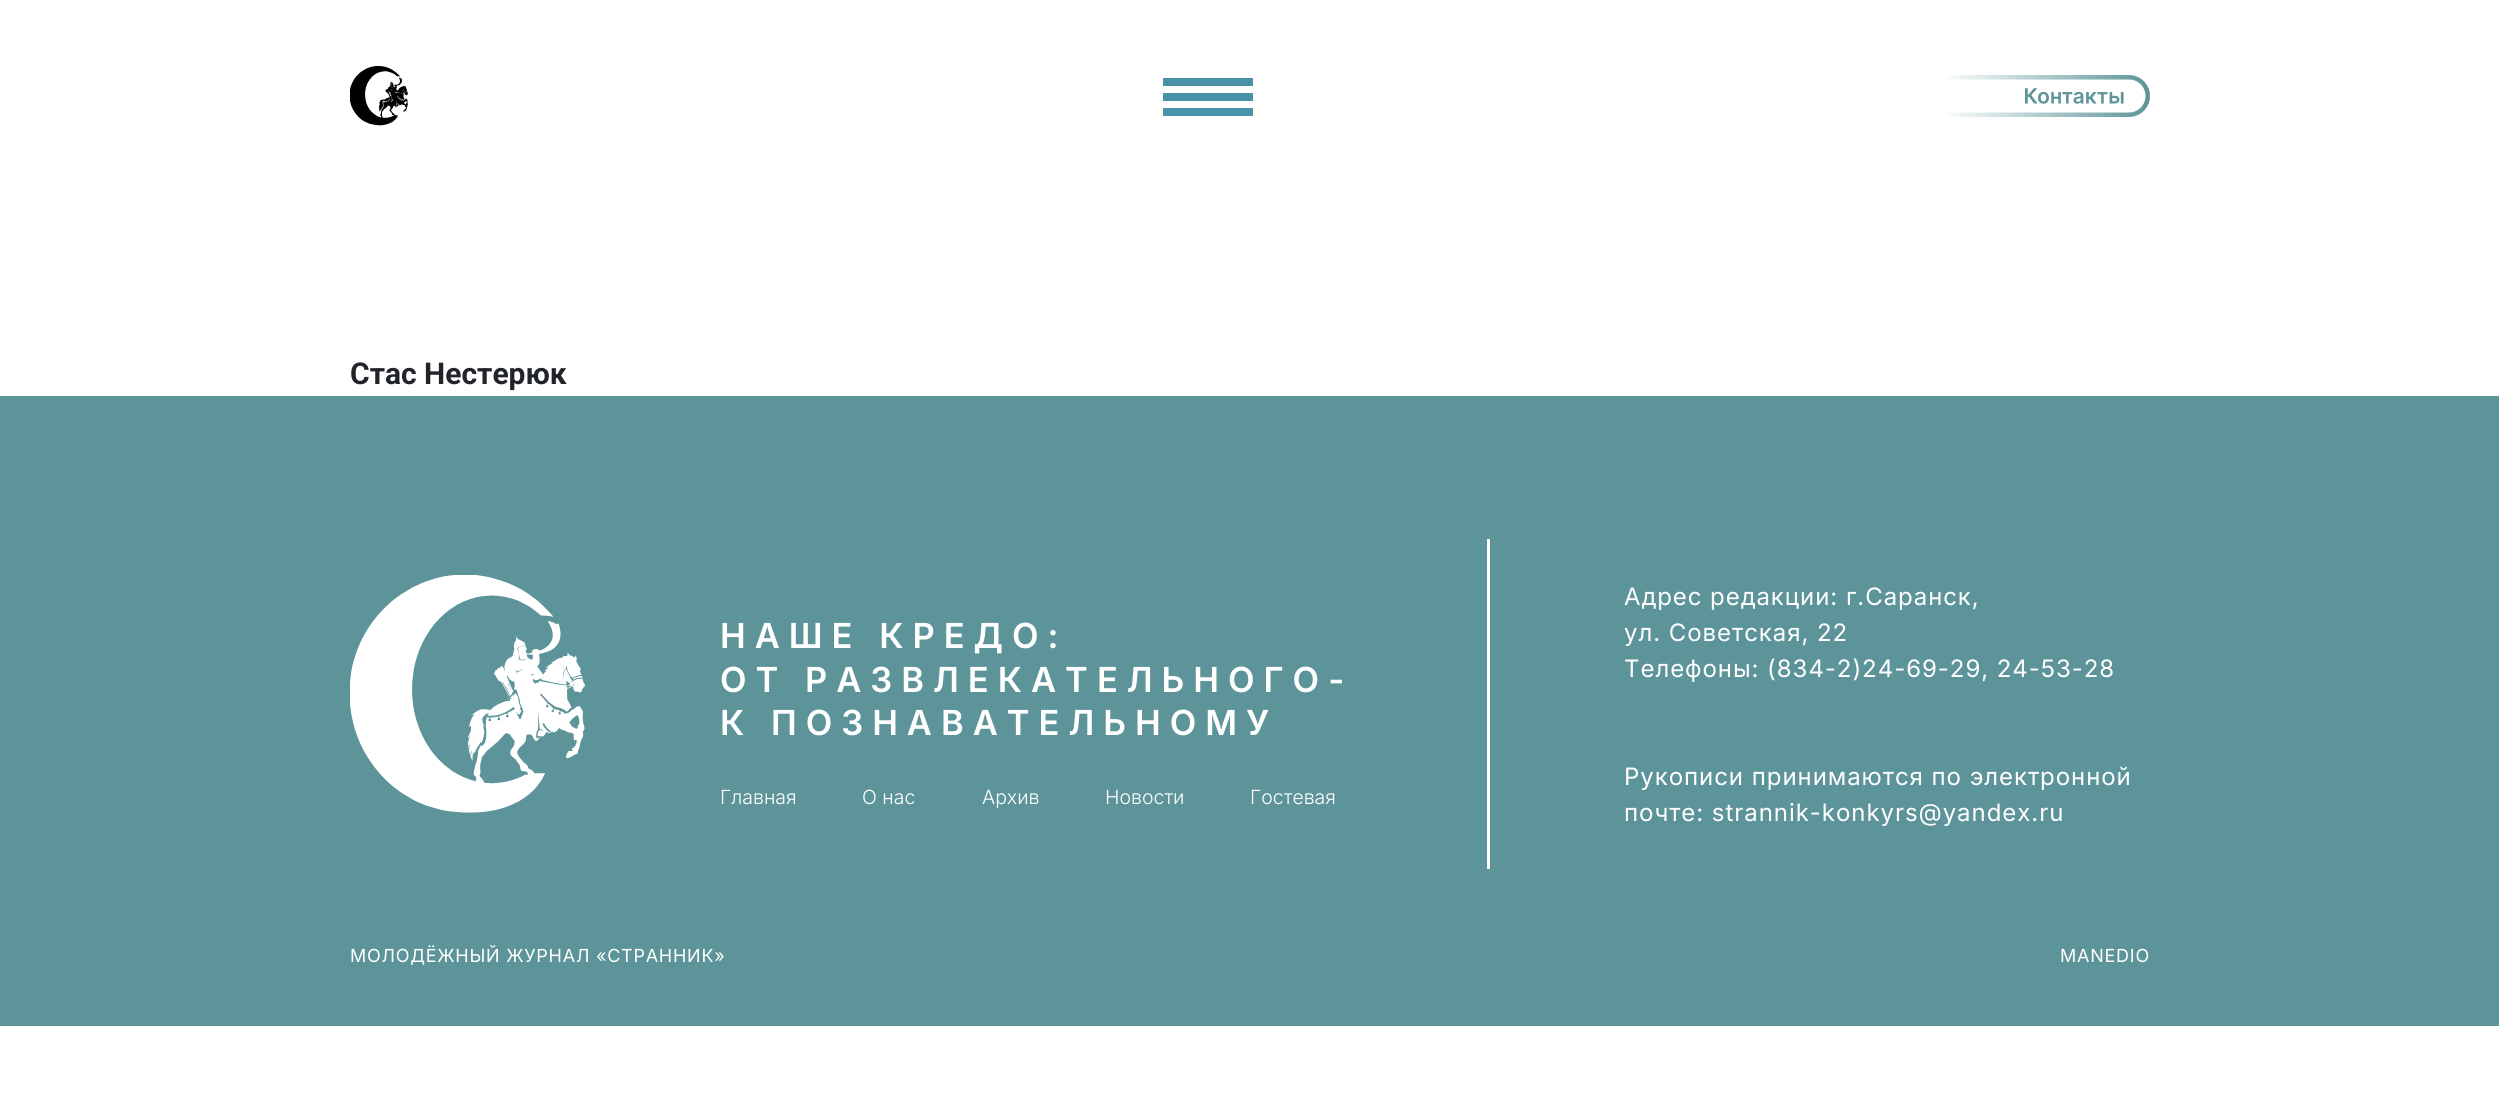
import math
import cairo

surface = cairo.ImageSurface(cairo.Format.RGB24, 2499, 1102)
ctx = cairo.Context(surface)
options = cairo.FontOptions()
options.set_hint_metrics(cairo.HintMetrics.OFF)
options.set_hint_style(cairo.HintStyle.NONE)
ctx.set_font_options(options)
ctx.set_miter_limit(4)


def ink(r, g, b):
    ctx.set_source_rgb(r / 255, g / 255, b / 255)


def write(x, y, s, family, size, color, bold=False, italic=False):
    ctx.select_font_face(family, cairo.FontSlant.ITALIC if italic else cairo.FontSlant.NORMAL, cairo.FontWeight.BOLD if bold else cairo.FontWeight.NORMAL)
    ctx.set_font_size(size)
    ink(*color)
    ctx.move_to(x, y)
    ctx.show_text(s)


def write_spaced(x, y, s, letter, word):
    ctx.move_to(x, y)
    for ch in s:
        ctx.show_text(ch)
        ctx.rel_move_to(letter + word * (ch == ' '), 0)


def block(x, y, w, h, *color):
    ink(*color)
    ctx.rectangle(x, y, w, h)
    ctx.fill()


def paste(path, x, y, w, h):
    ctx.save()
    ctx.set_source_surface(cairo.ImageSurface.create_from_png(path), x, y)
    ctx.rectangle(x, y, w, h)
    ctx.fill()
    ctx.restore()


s1 = dict(family="Roboto", size=30, color=(33, 37, 41), bold=True)
s2 = dict(family="Inter Light", size=19.5, color=(255, 255, 255))

ink(255, 255, 255)
ctx.paint()
paste("pic1.png", 350, 66, 58, 60)
block(1163, 93, 90, 8, 74, 146, 168)
block(1163, 78, 90, 8, 74, 146, 168)
block(1163, 108, 90, 8, 74, 146, 168)
paste("pic2.png", 1946, 75, 204, 42)
write(350, 384, "Стас Нестерюк", **s1)
block(0, 396, 2499, 630, 92, 148, 153)
paste("pic3.png", 350, 575, 235, 238)
ctx.select_font_face("Inter SemiBold")
ctx.set_font_size(34.5)
ink(255, 255, 255)
write_spaced(720, 648, "НАШЕ КРЕДО:", 9, 0)
write_spaced(720, 692, "ОТ РАЗВЛЕКАТЕЛЬНОГО-", 9, 0)
write_spaced(720, 735, "К ПОЗНАВАТЕЛЬНОМУ", 9, 0)
write(720, 804, "Главная", **s2)
write(862, 804, "О нас", **s2)
write(982, 804, "Архив", **s2)
write(1105, 804, "Новости", **s2)
write(1250, 804, "Гостевая", **s2)
block(1487, 539, 3, 330, 255, 255, 255)
ctx.select_font_face("Inter")
ctx.set_font_size(24)
write_spaced(1624, 605, "Адрес редакции: г.Саранск,", 0.95, 0)
write_spaced(1624, 641, "ул. Советская, 22", 0.95, 0)
write_spaced(1624, 677, "Телефоны: (834-2)24-69-29, 24-53-28", 0.95, 0)
write_spaced(1624, 785, "Рукописи принимаются по электронной", 0.95, 0)
write_spaced(1624, 821, "почте: strannik-konkyrs@yandex.ru", 0.95, 0)
ctx.set_font_size(18)
write_spaced(350, 962, "МОЛОДЁЖНЫЙ ЖУРНАЛ «СТРАННИК»", 0.75, 0)
write_spaced(2060, 962, "MANEDIO", 0.75, 0)
surface.write_to_png("screenshot.png")
